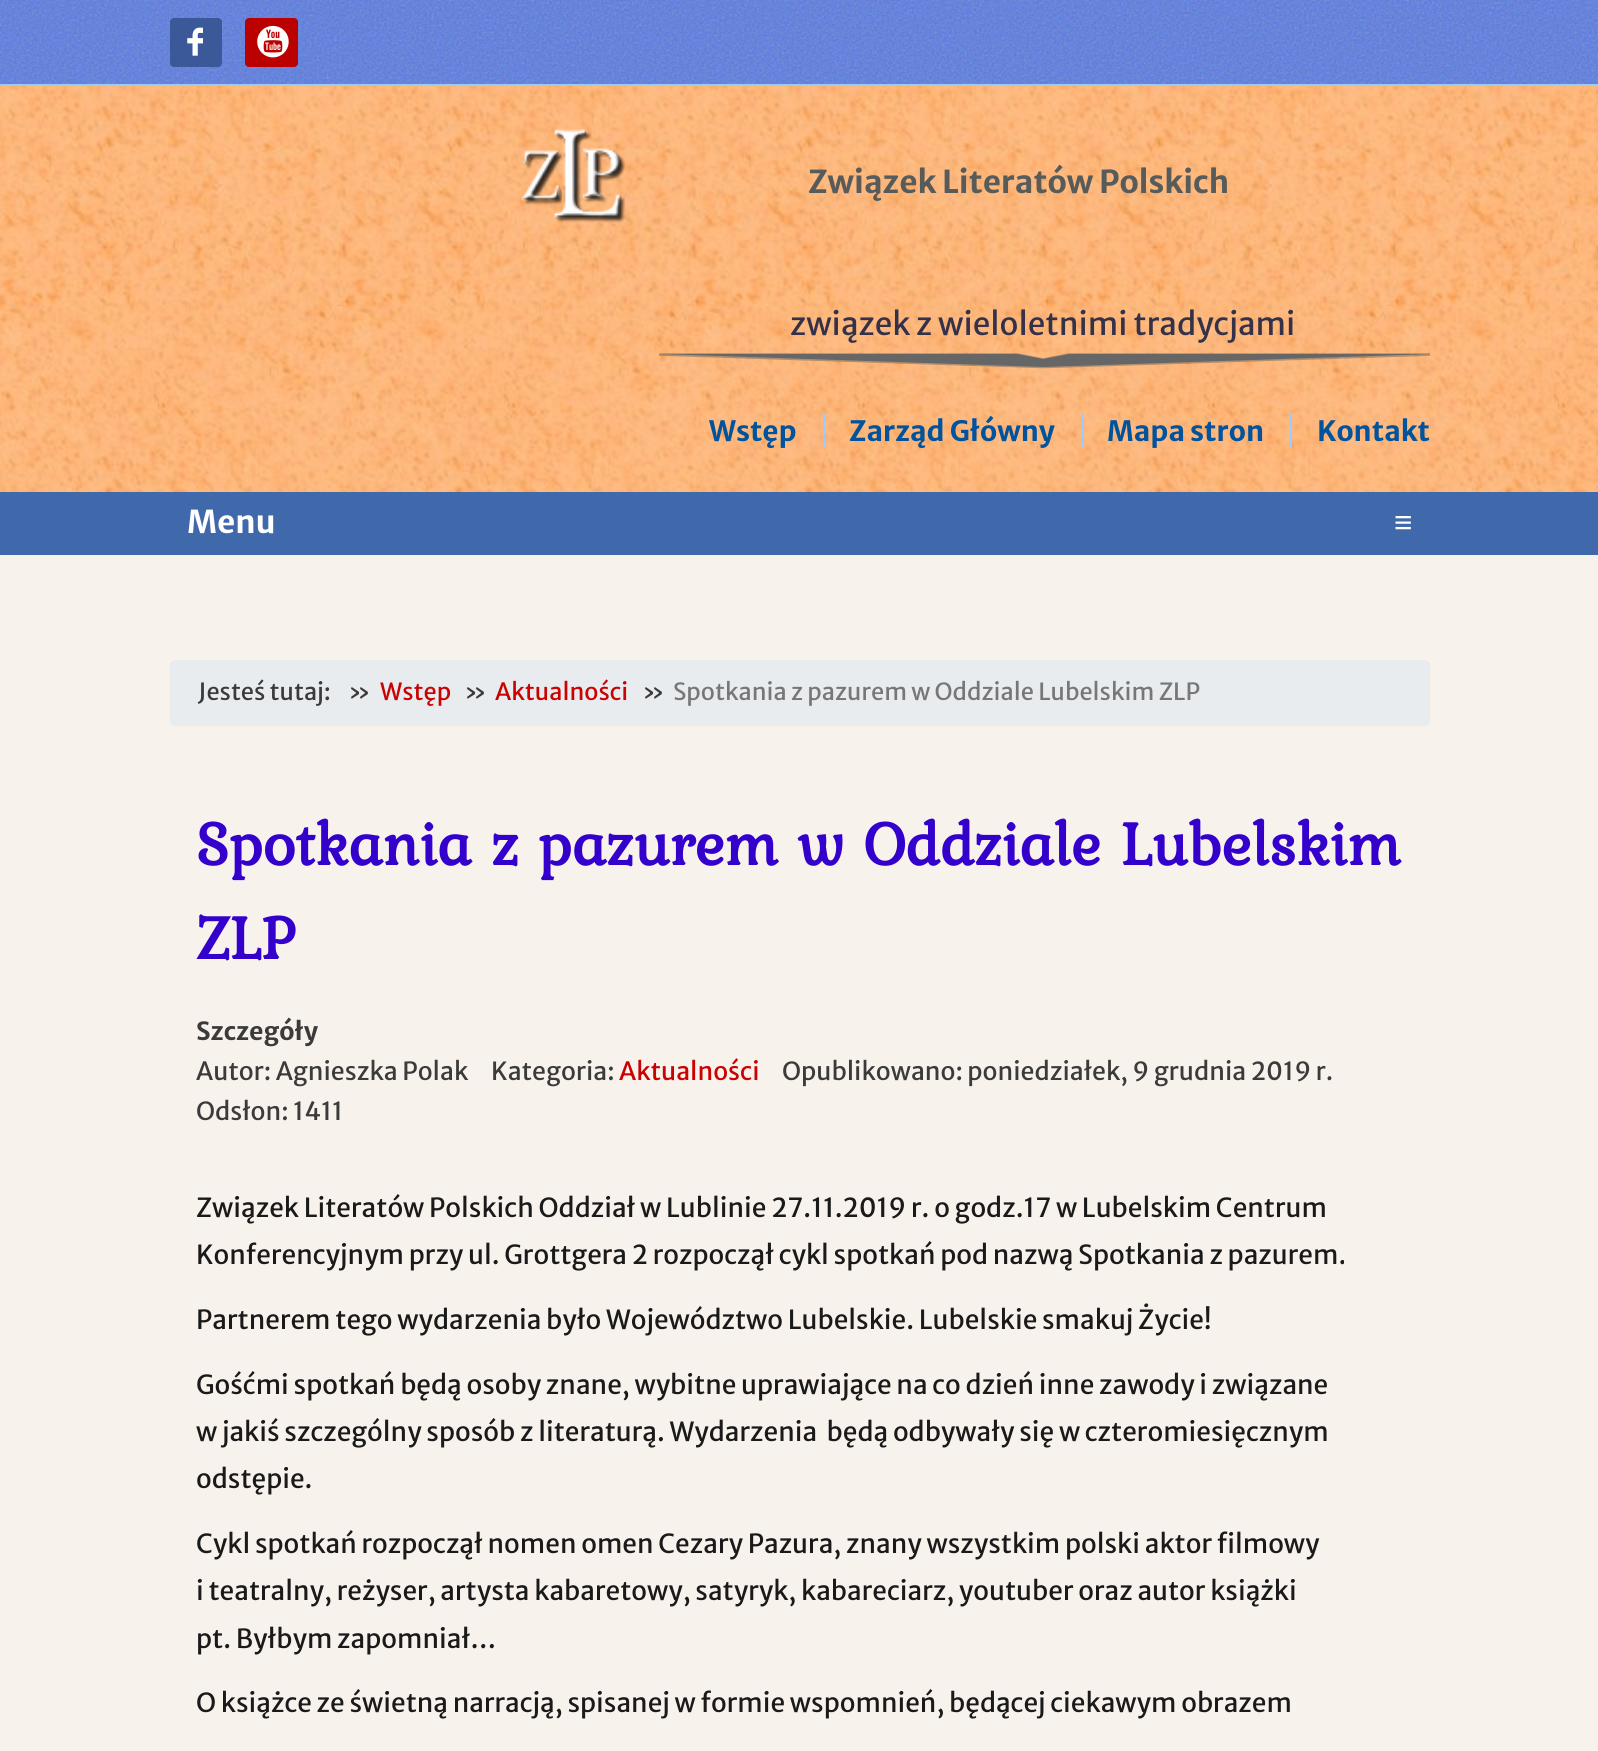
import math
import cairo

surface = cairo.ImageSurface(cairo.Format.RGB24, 1598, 1751)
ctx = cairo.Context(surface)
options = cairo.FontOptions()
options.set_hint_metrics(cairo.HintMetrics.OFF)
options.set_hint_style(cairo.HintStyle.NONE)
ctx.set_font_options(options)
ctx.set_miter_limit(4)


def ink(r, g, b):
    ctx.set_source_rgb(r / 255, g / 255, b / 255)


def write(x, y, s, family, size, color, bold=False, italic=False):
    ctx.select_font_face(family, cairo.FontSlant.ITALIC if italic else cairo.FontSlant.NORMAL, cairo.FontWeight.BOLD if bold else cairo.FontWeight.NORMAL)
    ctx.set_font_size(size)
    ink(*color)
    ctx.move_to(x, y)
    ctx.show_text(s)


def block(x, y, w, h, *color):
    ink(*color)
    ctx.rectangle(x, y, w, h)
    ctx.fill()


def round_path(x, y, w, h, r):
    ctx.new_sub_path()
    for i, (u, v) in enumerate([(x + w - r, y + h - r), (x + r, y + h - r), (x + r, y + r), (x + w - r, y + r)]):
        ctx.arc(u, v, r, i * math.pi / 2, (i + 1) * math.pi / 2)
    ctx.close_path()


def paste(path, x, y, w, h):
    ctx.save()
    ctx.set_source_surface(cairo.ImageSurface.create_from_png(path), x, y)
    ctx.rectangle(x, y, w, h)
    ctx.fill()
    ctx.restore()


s1 = dict(family="Merriweather Sans", size=31.5, color=(87, 91, 90), bold=True)
s2 = dict(family="Merriweather Sans", size=31.5, color=(52, 49, 72))
s3 = dict(family="Merriweather Sans", size=28, color=(0, 83, 156), bold=True)
s4 = dict(family="Merriweather Sans", size=31.5, color=(255, 255, 255), bold=True)
s5 = dict(family="Liberation Sans", size=31.5, color=(255, 255, 255), bold=True)
s6 = dict(family="Merriweather Sans", size=23.6, color=(59, 59, 59))
s7 = dict(family="Merriweather Sans", size=23.6, color=(202, 2, 2))
s8 = dict(family="Merriweather Sans", size=23.6, color=(119, 119, 119))
s9 = dict(family="Kurale", size=63, color=(51, 0, 204), bold=True)
s10 = dict(family="Merriweather Sans", size=24.9, color=(59, 59, 59), bold=True)
s11 = dict(family="Merriweather Sans", size=24.9, color=(59, 59, 59))
s12 = dict(family="Merriweather Sans", size=24.9, color=(202, 2, 2))
s13 = dict(family="Merriweather Sans", size=26.25, color=(26, 26, 26))

ink(248, 242, 237)
ctx.paint()
paste("pic1.png", 0, 86, 1598, 406)
block(0, 0, 1598, 84, 88, 122, 225)
paste("pic2.png", 0, 0, 1598, 84)
block(0, 84, 1598, 2, 153, 204, 255)
ink(59, 89, 152)
round_path(170, 18, 52, 49, 4)
ctx.fill()
paste("pic3.png", 187, 27, 16, 29)
ink(187, 0, 0)
round_path(245, 18, 53, 49, 4)
ctx.fill()
paste("pic4.png", 257, 25, 32, 33)
paste("pic5.png", 521, 129, 105, 94)
write(808, 193, "Związek Literatów Polskich", **s1)
ink(102, 102, 102)
ctx.new_path()
ctx.move_to(659, 354)
ctx.line_to(1017, 354)
ctx.line_to(1043, 359)
ctx.line_to(1069, 354)
ctx.line_to(1430, 354)
ctx.line_to(1043, 367)
ctx.close_path()
ctx.fill()
ctx.new_path()
ctx.move_to(659, 354.5)
ctx.line_to(1017.5, 354.5)
ctx.line_to(1043, 359.5)
ctx.line_to(1069, 354.5)
ctx.line_to(1430, 354.5)
ctx.line_to(1043, 367)
ctx.close_path()
ctx.set_source_rgba(0.4, 0.4, 0.4, 0.5)
ctx.set_line_width(2.6)
ctx.stroke()
write(790, 335, "związek z wieloletnimi tradycjami", **s2)
write(709, 441, "Wstęp", **s3)
block(823, 413, 2, 35, 153, 204, 255)
write(849, 441, "Zarząd Główny", **s3)
block(1082, 413, 2, 35, 153, 204, 255)
write(1107, 441, "Mapa stron", **s3)
block(1290, 413, 2, 35, 153, 204, 255)
write(1317, 441, "Kontakt", **s3)
block(0, 492, 1598, 63, 63, 105, 170)
write(187, 533, "Menu", **s4)
write(1394, 533, "≡", **s5)
ink(233, 236, 239)
round_path(171, 661, 1258, 64, 4)
ctx.fill_preserve()
ctx.set_line_width(2)
ctx.stroke()
write(198, 700, "Jesteś tutaj:", **s6)
write(348, 700, "»", **s6)
write(380, 700, "Wstęp", **s7)
write(464, 700, "»", **s6)
write(495, 700, "Aktualności", **s7)
write(642, 700, "»", **s6)
write(673, 700, "Spotkania z pazurem w Oddziale Lubelskim ZLP", **s8)
write(196, 865, "Spotkania z pazurem w Oddziale Lubelskim", **s9)
write(196, 959, "ZLP", **s9)
write(196, 1040, "Szczegóły", **s10)
write(196, 1080, "Autor: Agnieszka Polak", **s11)
write(491, 1080, "Kategoria:", **s11)
write(619, 1080, "Aktualności", **s12)
write(782, 1080, "Opublikowano: poniedziałek, 9 grudnia 2019 r.", **s11)
write(196, 1120, "Odsłon: 1411", **s11)
write(196, 1217, "Związek Literatów Polskich Oddział w Lublinie 27.11.2019 r. o godz.17 w Lubelskim Centrum", **s13)
write(196, 1264, "Konferencyjnym przy ul. Grottgera 2 rozpoczął cykl spotkań pod nazwą Spotkania z pazurem.", **s13)
write(196, 1329, "Partnerem tego wydarzenia było Województwo Lubelskie. Lubelskie smakuj Życie!", **s13)
write(196, 1394, "Gośćmi spotkań będą osoby znane, wybitne uprawiające na co dzień inne zawody i związane", **s13)
write(196, 1441, "w jakiś szczególny sposób z literaturą. Wydarzenia  będą odbywały się w czteromiesięcznym", **s13)
write(196, 1488, "odstępie.", **s13)
write(196, 1553, "Cykl spotkań rozpoczął nomen omen Cezary Pazura, znany wszystkim polski aktor filmowy", **s13)
write(196, 1600, "i teatralny, reżyser, artysta kabaretowy, satyryk, kabareciarz, youtuber oraz autor książki", **s13)
write(196, 1648, "pt. Byłbym zapomniał…", **s13)
write(196, 1712, "O książce ze świetną narracją, spisanej w formie wspomnień, będącej ciekawym obrazem", **s13)
surface.write_to_png("screenshot.png")
